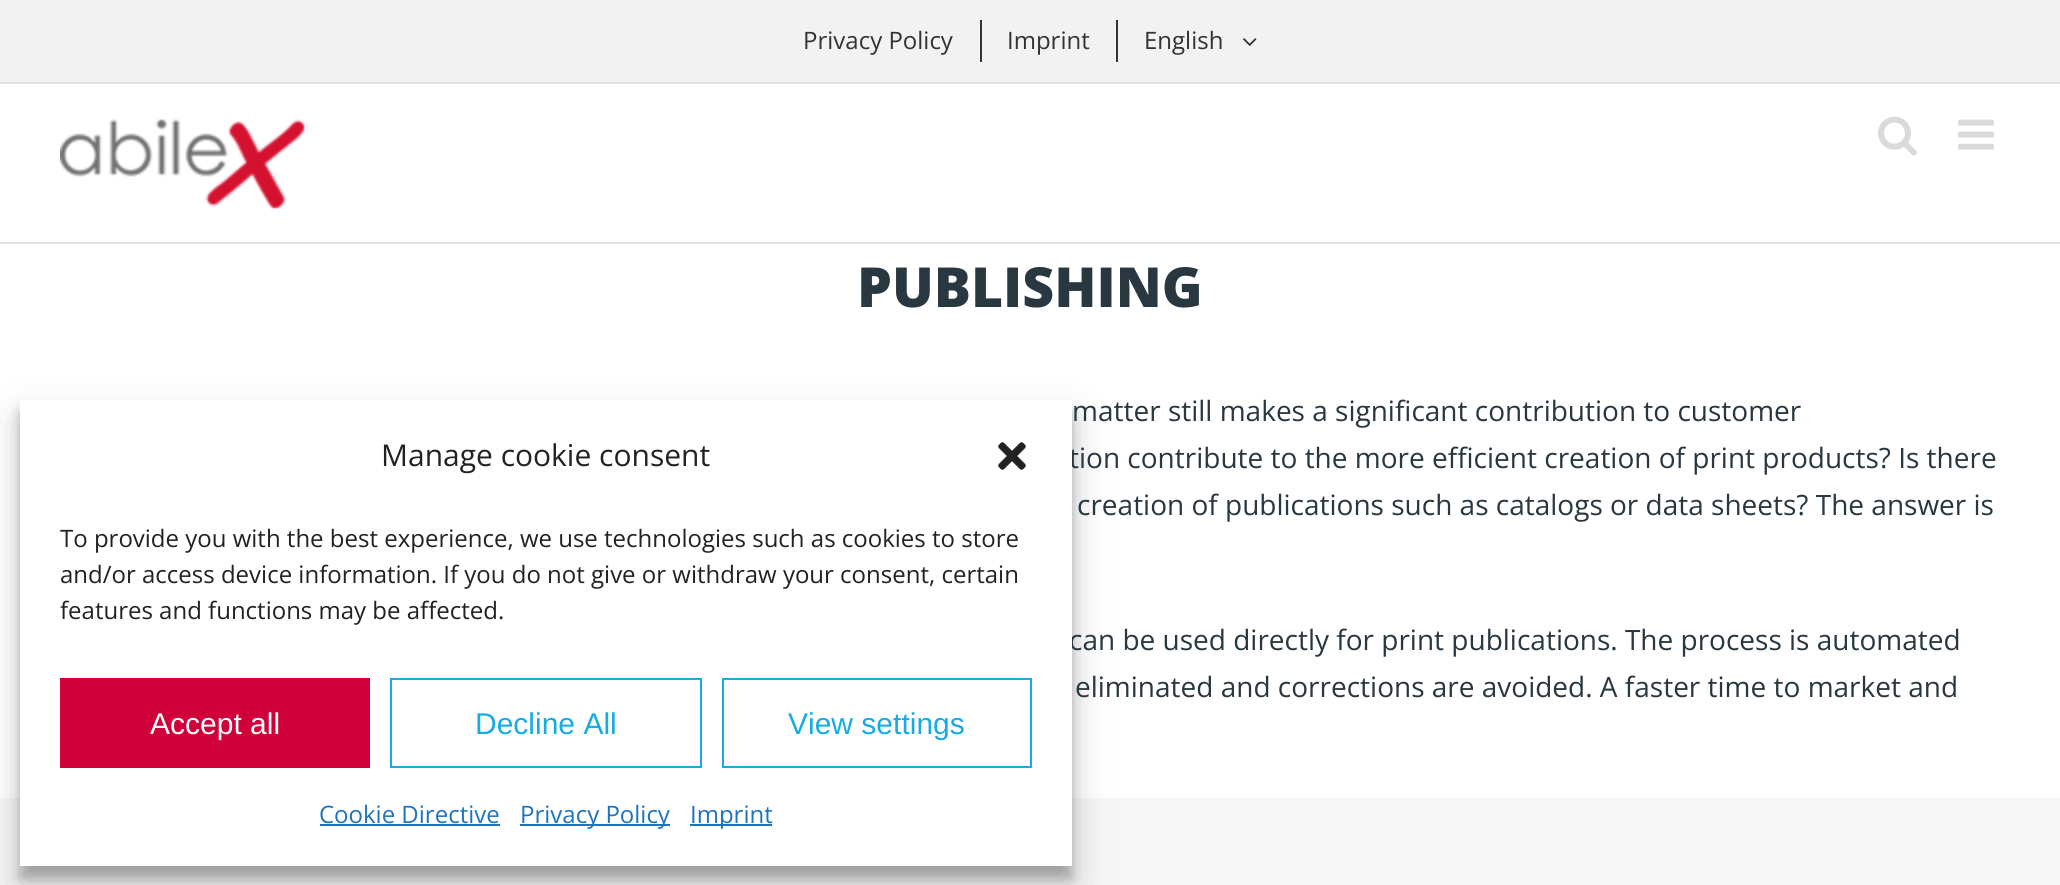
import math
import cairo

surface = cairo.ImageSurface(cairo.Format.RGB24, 2060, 885)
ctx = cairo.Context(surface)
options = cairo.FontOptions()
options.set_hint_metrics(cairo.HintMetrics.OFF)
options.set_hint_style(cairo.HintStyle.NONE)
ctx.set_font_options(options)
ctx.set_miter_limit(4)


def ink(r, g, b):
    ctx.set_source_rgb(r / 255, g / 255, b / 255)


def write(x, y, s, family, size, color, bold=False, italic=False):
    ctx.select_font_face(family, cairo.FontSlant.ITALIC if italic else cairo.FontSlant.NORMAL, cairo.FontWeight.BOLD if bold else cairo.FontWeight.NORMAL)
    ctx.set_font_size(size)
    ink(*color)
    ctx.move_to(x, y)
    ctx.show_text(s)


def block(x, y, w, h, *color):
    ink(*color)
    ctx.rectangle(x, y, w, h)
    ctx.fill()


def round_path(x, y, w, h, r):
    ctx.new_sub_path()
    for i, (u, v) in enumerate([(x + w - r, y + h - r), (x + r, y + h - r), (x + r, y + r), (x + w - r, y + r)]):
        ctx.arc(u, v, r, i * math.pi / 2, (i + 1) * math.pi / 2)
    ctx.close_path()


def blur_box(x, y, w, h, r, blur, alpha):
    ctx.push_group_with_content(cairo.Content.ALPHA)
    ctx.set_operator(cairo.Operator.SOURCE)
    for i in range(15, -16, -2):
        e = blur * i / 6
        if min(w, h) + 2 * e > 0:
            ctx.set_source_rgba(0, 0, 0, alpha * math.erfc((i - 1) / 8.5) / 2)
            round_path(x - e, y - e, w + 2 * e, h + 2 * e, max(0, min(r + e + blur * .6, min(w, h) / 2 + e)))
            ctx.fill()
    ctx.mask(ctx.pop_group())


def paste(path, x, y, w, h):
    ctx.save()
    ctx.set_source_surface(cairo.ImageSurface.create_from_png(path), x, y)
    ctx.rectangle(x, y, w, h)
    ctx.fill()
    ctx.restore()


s1 = dict(family="Open Sans", size=28, color=(40, 55, 64))
s2 = dict(family="Open Sans", size=30, color=(34, 34, 34))
s3 = dict(family="Open Sans", size=24, color=(34, 34, 34))
s4 = dict(family="Liberation Sans", size=30, color=(255, 255, 255))
s5 = dict(family="Liberation Sans", size=30, color=(21, 171, 227))
s6 = dict(family="Open Sans", size=24, color=(30, 115, 190))
s7 = dict(family="Open Sans", size=24, color=(51, 51, 51))
s8 = dict(family="Open Sans ExtraBold", size=55.25, color=(40, 55, 64))

ink(255, 255, 255)
ctx.paint()
block(0, 798, 2060, 87, 246, 246, 246)
ink(0, 0, 0)
blur_box(20, 412, 1052, 466, 0, 6, 0.23)
blur_box(20, 420, 1052, 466, 0, 20, 0.19)
write(1069, 468, "tion contribute to the more efficient creation of print products? Is there", **s1)
write(1069, 650, "can be used directly for print publications. The process is automated", **s1)
block(20, 400, 1052, 466, 255, 255, 255)
write(381, 466, "Manage cookie consent", **s2)
paste("pic1.png", 998, 442, 28, 28)
write(60, 547, "To provide you with the best experience, we use technologies such as cookies to store", **s3)
write(60, 583, "and/or access device information. If you do not give or withdraw your consent, certain", **s3)
write(60, 619, "features and functions may be affected.", **s3)
block(60, 678, 310, 90, 208, 0, 58)
write(150, 734, "Accept all", **s4)
ctx.rectangle(391, 679, 310, 88)
ink(21, 171, 227)
ctx.stroke()
write(475, 734, "Decline All", **s5)
ctx.rectangle(723, 679, 308, 88)
ctx.stroke()
write(788, 734, "View settings", **s5)
write(319, 823, "Cookie Directive", **s6)
block(320, 824, 180, 2, 30, 115, 190)
block(520, 824, 150, 2, 30, 115, 190)
write(520, 823, "Privacy Policy", **s6)
block(690, 824, 82, 2, 30, 115, 190)
write(690, 823, "Imprint", **s6)
block(0, 0, 2060, 82, 242, 242, 242)
block(0, 82, 2060, 2, 225, 225, 225)
write(803, 49, "Privacy Policy", **s7)
block(980, 20, 2, 42, 51, 51, 51)
write(1007, 49, "Imprint", **s7)
block(1116, 20, 2, 42, 51, 51, 51)
write(1144, 49, "English", **s7)
paste("pic2.png", 1243, 38, 14, 8)
block(0, 242, 2060, 2, 225, 225, 225)
paste("pic3.png", 60, 119, 245, 90)
paste("pic4.png", 1878, 116, 39, 40)
paste("pic5.png", 1958, 119, 36, 31)
write(857, 307, "PUBLISHING", **s8)
write(1072, 421, "matter still makes a significant contribution to customer", **s1)
write(1077, 515, "creation of publications such as catalogs or data sheets? The answer is", **s1)
write(1075, 697, "eliminated and corrections are avoided. A faster time to market and", **s1)
surface.write_to_png("screenshot.png")
